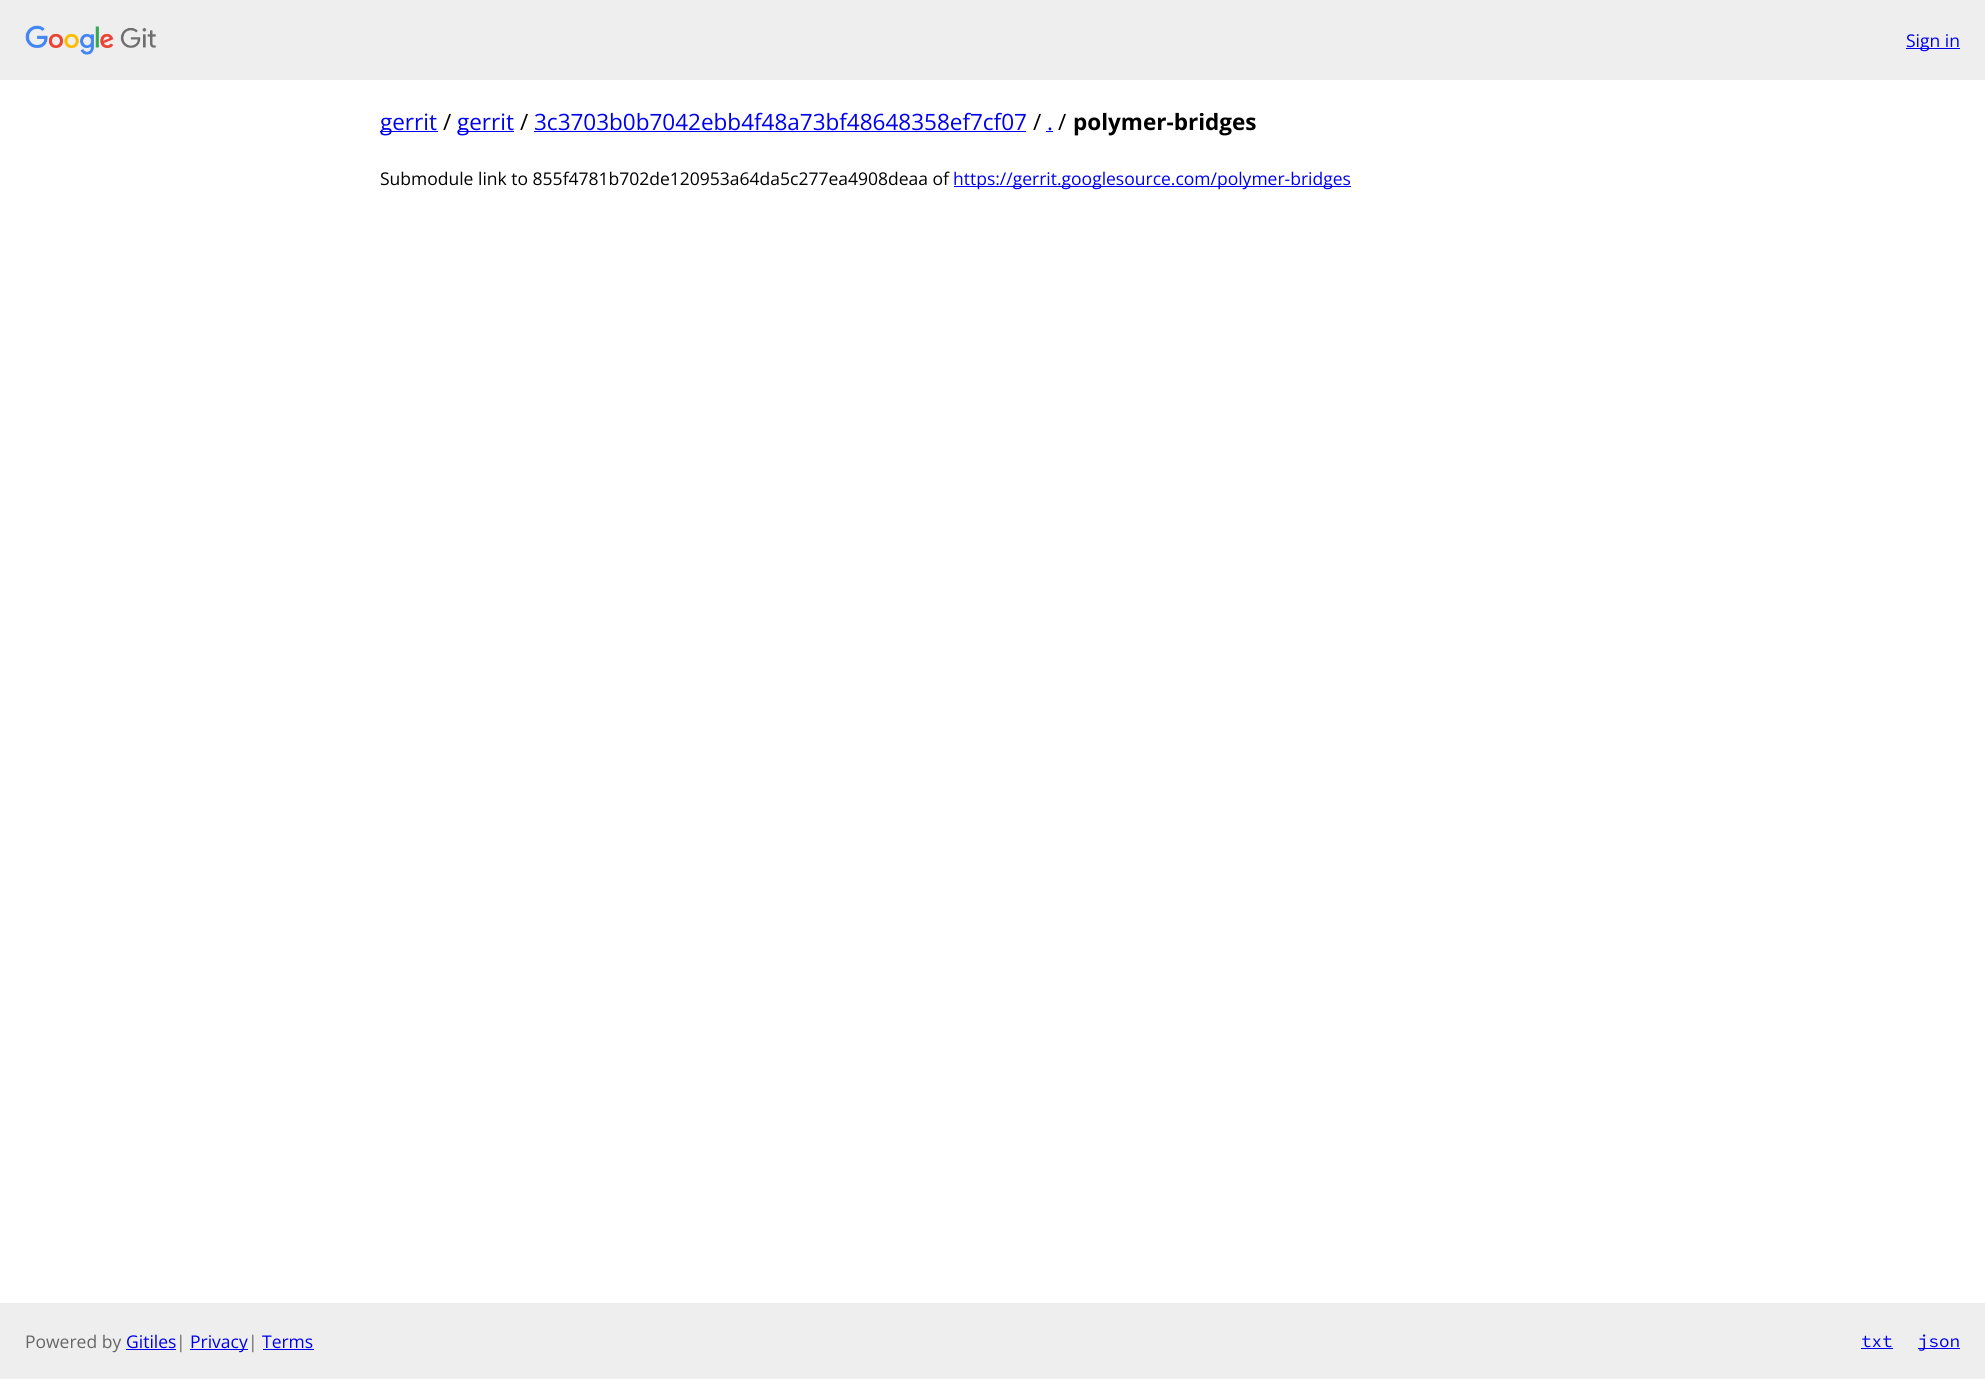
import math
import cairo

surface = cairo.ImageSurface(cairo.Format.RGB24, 1985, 1379)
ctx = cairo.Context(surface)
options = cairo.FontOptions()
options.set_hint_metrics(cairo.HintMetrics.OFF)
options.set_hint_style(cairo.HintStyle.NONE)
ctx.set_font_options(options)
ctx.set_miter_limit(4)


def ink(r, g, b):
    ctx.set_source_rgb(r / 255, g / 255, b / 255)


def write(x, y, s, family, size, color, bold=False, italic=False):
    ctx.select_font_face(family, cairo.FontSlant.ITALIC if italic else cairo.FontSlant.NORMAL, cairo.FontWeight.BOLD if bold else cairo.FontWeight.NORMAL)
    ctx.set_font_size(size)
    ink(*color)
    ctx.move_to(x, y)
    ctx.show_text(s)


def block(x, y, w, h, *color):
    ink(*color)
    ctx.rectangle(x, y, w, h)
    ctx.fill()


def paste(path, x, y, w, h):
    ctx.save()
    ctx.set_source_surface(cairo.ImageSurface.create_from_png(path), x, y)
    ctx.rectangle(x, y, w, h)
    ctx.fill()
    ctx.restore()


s1 = dict(family="Open Sans", size=17.5, color=(0, 0, 238))
s2 = dict(family="Open Sans", size=22.5, color=(0, 0, 238))
s3 = dict(family="Open Sans", size=22.5, color=(0, 0, 0))
s4 = dict(family="Open Sans", size=22.5, color=(0, 0, 0), bold=True)
s5 = dict(family="Open Sans", size=17.5, color=(0, 0, 0))
s6 = dict(family="Open Sans", size=17.5, color=(102, 102, 102))
s7 = dict(family="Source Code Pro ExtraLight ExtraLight", size=17.5, color=(0, 0, 238))

ink(255, 255, 255)
ctx.paint()
block(0, 0, 1985, 80, 238, 238, 238)
paste("pic1.png", 25, 25, 131, 30)
block(1906, 48, 54, 1, 0, 0, 238)
write(1906, 47, "Sign in", **s1)
block(380, 131, 58, 1, 0, 0, 238)
write(380, 130, "gerrit", **s2)
write(443, 130, "/", **s3)
block(458, 131, 56, 1, 0, 0, 238)
write(457, 130, "gerrit", **s2)
write(520, 130, "/", **s3)
write(534, 130, "3c3703b0b7042ebb4f48a73bf48648358ef7cf07", **s2)
block(534, 131, 492, 1, 0, 0, 238)
write(1033, 130, "/", **s3)
write(1047, 130, ".", **s2)
block(1046, 131, 7, 1, 0, 0, 238)
write(1058, 130, "/", **s3)
write(1073, 130, "polymer-bridges", **s4)
write(380, 185, "Submodule link to 855f4781b702de120953a64da5c277ea4908deaa of", **s5)
block(954, 186, 397, 1, 0, 0, 238)
write(953, 185, "https://gerrit.googlesource.com/polymer-bridges", **s1)
block(0, 1303, 1985, 76, 238, 238, 238)
write(25, 1348, "Powered by", **s6)
write(126, 1348, "Gitiles", **s1)
block(126, 1349, 50, 1, 0, 0, 238)
write(176, 1348, "|", **s6)
block(190, 1349, 58, 1, 0, 0, 238)
write(190, 1348, "Privacy", **s1)
write(248, 1348, "|", **s6)
write(262, 1348, "Terms", **s1)
block(263, 1349, 51, 1, 0, 0, 238)
write(1861, 1347, "txt", **s7)
block(1861, 1348, 32, 1, 0, 0, 238)
block(1918, 1348, 42, 1, 0, 0, 238)
write(1918, 1347, "json", **s7)
surface.write_to_png("screenshot.png")
